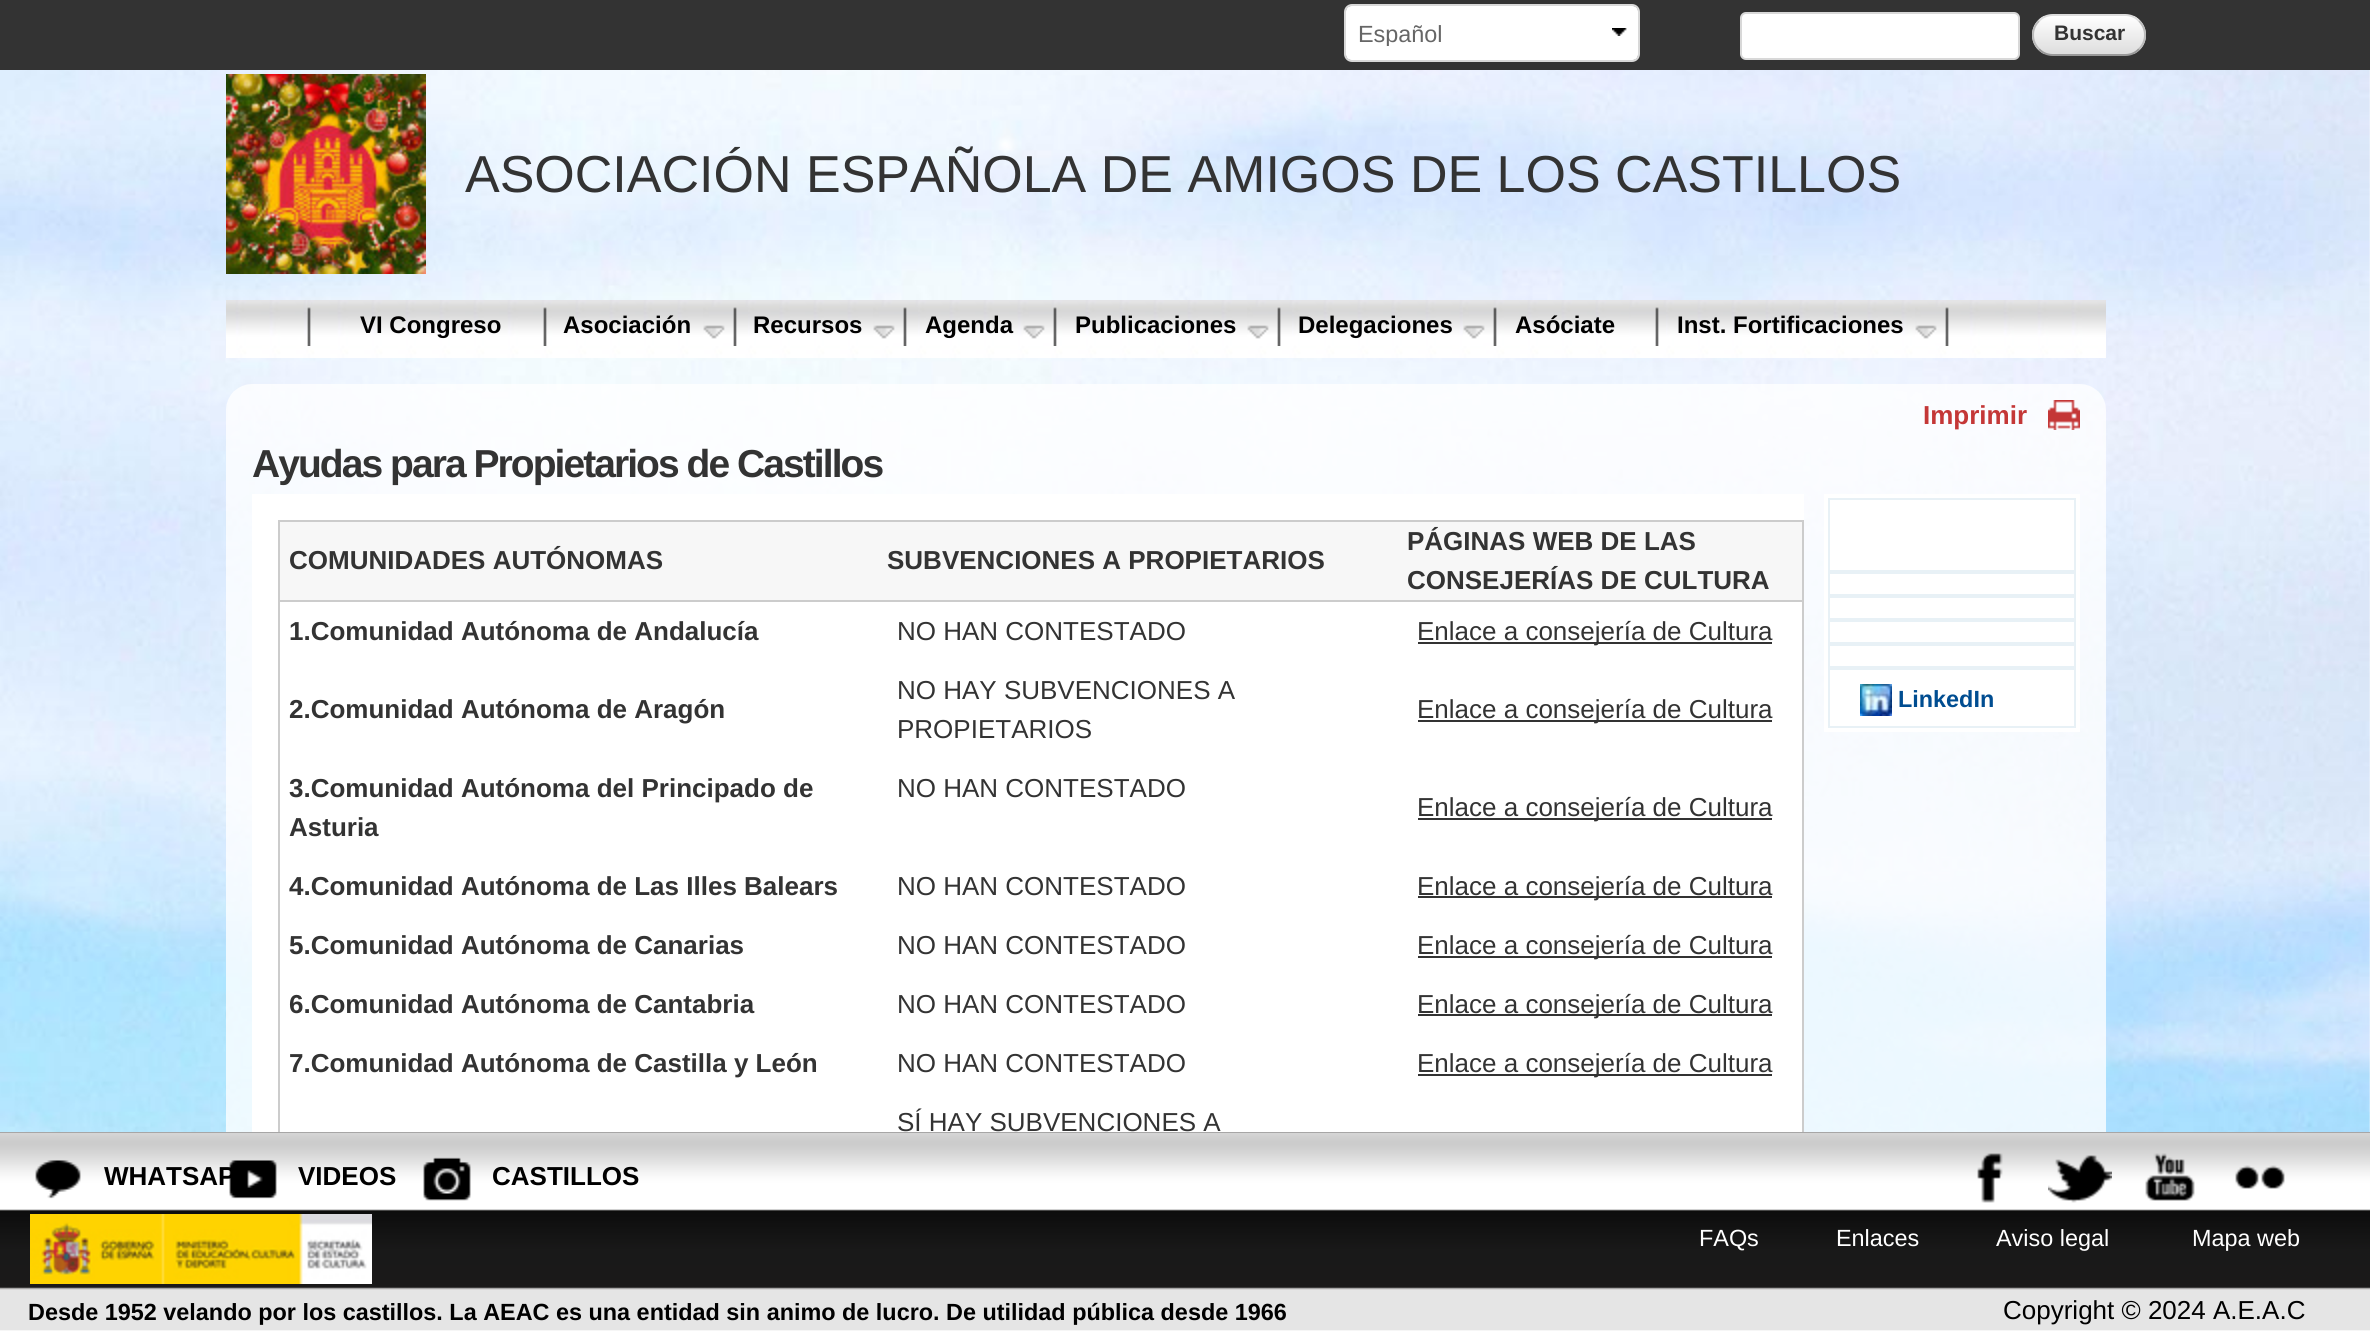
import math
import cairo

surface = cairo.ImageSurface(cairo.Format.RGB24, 2370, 1331)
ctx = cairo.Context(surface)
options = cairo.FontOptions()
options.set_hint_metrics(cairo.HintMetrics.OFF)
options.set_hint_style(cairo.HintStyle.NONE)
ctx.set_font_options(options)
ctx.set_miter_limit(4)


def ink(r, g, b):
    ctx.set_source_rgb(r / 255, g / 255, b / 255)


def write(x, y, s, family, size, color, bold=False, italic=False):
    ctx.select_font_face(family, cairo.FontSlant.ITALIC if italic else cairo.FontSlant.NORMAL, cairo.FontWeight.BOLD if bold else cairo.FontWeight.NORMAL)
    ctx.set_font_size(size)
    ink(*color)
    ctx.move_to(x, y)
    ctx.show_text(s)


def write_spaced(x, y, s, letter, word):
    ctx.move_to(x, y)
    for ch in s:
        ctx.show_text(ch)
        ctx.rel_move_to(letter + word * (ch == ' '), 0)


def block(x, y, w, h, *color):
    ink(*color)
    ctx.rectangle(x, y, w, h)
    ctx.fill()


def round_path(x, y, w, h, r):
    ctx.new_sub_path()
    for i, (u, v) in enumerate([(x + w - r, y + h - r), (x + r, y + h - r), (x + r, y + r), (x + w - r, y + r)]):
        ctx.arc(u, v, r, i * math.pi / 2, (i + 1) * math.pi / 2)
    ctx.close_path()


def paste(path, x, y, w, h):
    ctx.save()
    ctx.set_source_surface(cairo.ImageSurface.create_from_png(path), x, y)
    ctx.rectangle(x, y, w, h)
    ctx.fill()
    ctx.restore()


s1 = dict(family="Liberation Sans", size=23.4, color=(102, 102, 102))
s2 = dict(family="Liberation Sans", size=21, color=(51, 51, 51), bold=True)
s3 = dict(family="Liberation Sans", size=52, color=(51, 51, 51))
s4 = dict(family="Liberation Sans", size=24, color=(0, 0, 0), bold=True)
s5 = dict(family="Liberation Sans", size=26, color=(196, 55, 55), bold=True)
s6 = dict(family="Liberation Sans", size=26, color=(51, 51, 51), bold=True)
s7 = dict(family="Liberation Sans", size=26, color=(51, 51, 51))
s8 = dict(family="Liberation Sans", size=23.4, color=(0, 77, 145), bold=True)
s9 = dict(family="Liberation Sans", size=26, color=(0, 0, 0), bold=True)
s10 = dict(family="Liberation Sans", size=23.4, color=(255, 255, 255))
s11 = dict(family="Liberation Sans", size=23.4, color=(0, 0, 0), bold=True)
s12 = dict(family="Liberation Sans", size=26, color=(0, 0, 0))

ink(255, 255, 255)
ctx.paint()
block(0, 0, 2370, 70, 51, 51, 51)
ink(255, 255, 255)
round_path(1346, 6, 292, 54, 5)
ctx.fill()
paste("pic1.png", 1612, 28, 15, 8)
round_path(1345, 5, 294, 56, 7)
ink(216, 216, 216)
ctx.stroke()
ctx.save()
ctx.rectangle(1358, 20, 270, 26)
ctx.clip()
write(1358, 42, "Español", **s1)
ctx.restore()
ink(255, 255, 255)
round_path(1741, 13, 278, 46, 5)
ctx.fill_preserve()
ink(216, 216, 216)
ctx.stroke()
ctx.save()
round_path(2032, 14, 114, 42, 21)
ctx.clip()
gradient = cairo.LinearGradient(2034, 16, 2034, 54)
gradient.add_color_stop_rgba(0, 1, 1, 1, 1)
gradient.add_color_stop_rgba(1, 0.867, 0.867, 0.867, 1)
ctx.set_source(gradient)
ctx.rectangle(2032, 16, 114, 38)
ctx.fill()
ctx.restore()
ctx.new_path()
ctx.move_to(2039, 21)
ctx.curve_to(2042.5, 17, 2047.5, 15, 2053, 15)
ctx.line_to(2125, 15)
ctx.curve_to(2130.5, 15, 2135.5, 17, 2139, 21)
ink(221, 221, 221)
ctx.stroke()
ctx.new_path()
ctx.move_to(2139, 21)
ctx.curve_to(2147, 28.5, 2147, 41.5, 2139, 49)
ink(187, 187, 187)
ctx.stroke()
ctx.new_path()
ctx.move_to(2139, 49)
ctx.curve_to(2135.5, 53, 2130.5, 55, 2125, 55)
ctx.line_to(2053, 55)
ctx.curve_to(2047.5, 55, 2042.5, 53, 2039, 49)
ink(153, 153, 153)
ctx.stroke()
ctx.new_path()
ctx.move_to(2039, 49)
ctx.curve_to(2031, 41.5, 2031, 28.5, 2039, 21)
ink(187, 187, 187)
ctx.stroke()
write(2054, 40, "Buscar", **s2)
paste("pic21.png", 0, 70, 2370, 1062)
paste("pic2.png", 226, 74, 200, 200)
write(465, 192, "ASOCIACIÓN ESPAÑOLA DE AMIGOS DE LOS CASTILLOS", **s3)
paste("pic3.png", 226, 300, 1880, 58)
paste("pic4.png", 307, 300, 4, 46)
paste("pic5.png", 542, 307, 5, 39)
write(360, 333, "VI Congreso", **s4)
paste("pic6.png", 703, 307, 45, 39)
write(563, 333, "Asociación", **s4)
paste("pic6.png", 873, 307, 45, 39)
write(753, 333, "Recursos", **s4)
paste("pic7.png", 1023, 307, 34, 39)
write(925, 333, "Agenda", **s4)
paste("pic6.png", 1247, 307, 45, 39)
write(1075, 333, "Publicaciones", **s4)
paste("pic7.png", 1463, 307, 34, 39)
write(1298, 333, "Delegaciones", **s4)
paste("pic8.png", 1630, 307, 36, 39)
write(1515, 333, "Asóciate", **s4)
paste("pic7.png", 1915, 307, 34, 39)
write(1677, 333, "Inst. Fortificaciones", **s4)
paste("pic9.png", 226, 384, 1880, 52)
write(1923, 424, "Imprimir", **s5)
paste("pic10.png", 2048, 400, 32, 30)
ctx.set_source_rgba(1, 1, 1, 0.78)
ctx.rectangle(226, 436, 1880, 696)
ctx.fill()
ctx.set_font_size(39)
ink(51, 51, 51)
write_spaced(252, 477, "Ayudas para Propietarios de Castillos", -1.95, 0)
block(252, 494, 1552, 638, 255, 255, 255)
ctx.rectangle(279, 521, 1524, 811)
ink(204, 204, 204)
ctx.stroke()
block(280, 522, 1522, 78, 247, 247, 247)
block(280, 600, 1522, 2, 204, 204, 204)
write(289, 569, "COMUNIDADES AUTÓNOMAS", **s6)
write(887, 569, "SUBVENCIONES A PROPIETARIOS", **s6)
write(1407, 550, "PÁGINAS WEB DE LAS", **s6)
write(1407, 589, "CONSEJERÍAS DE CULTURA", **s6)
write(289, 640, "1.Comunidad Autónoma de Andalucía", **s6)
write(897, 640, "NO HAN CONTESTADO", **s7)
block(1418, 642, 354, 2, 51, 51, 51)
write(1417, 640, "Enlace a consejería de Cultura", **s7)
write(289, 718, "2.Comunidad Autónoma de Aragón", **s6)
write(897, 699, "NO HAY SUBVENCIONES A", **s7)
write(897, 738, "PROPIETARIOS", **s7)
block(1418, 720, 354, 2, 51, 51, 51)
write(1417, 718, "Enlace a consejería de Cultura", **s7)
write(289, 797, "3.Comunidad Autónoma del Principado de", **s6)
write(289, 836, "Asturia", **s6)
write(897, 797, "NO HAN CONTESTADO", **s7)
block(1418, 818, 354, 2, 51, 51, 51)
write(1417, 816, "Enlace a consejería de Cultura", **s7)
write(289, 895, "4.Comunidad Autónoma de Las Illes Balears", **s6)
write(897, 895, "NO HAN CONTESTADO", **s7)
block(1418, 896, 354, 2, 51, 51, 51)
write(1417, 895, "Enlace a consejería de Cultura", **s7)
write(289, 954, "5.Comunidad Autónoma de Canarias", **s6)
write(897, 954, "NO HAN CONTESTADO", **s7)
block(1418, 956, 354, 2, 51, 51, 51)
write(1417, 954, "Enlace a consejería de Cultura", **s7)
write(289, 1013, "6.Comunidad Autónoma de Cantabria", **s6)
write(897, 1013, "NO HAN CONTESTADO", **s7)
block(1418, 1014, 354, 2, 51, 51, 51)
write(1417, 1013, "Enlace a consejería de Cultura", **s7)
write(289, 1072, "7.Comunidad Autónoma de Castilla y León", **s6)
write(897, 1072, "NO HAN CONTESTADO", **s7)
block(1418, 1074, 354, 2, 51, 51, 51)
write(1417, 1072, "Enlace a consejería de Cultura", **s7)
write(897, 1131, "SÍ HAY SUBVENCIONES A", **s7)
block(1824, 494, 256, 238, 255, 255, 255)
ctx.rectangle(1829, 499, 246, 72)
ink(232, 241, 246)
ctx.stroke()
ctx.rectangle(1829, 573, 246, 22)
ctx.stroke()
ctx.rectangle(1829, 597, 246, 22)
ctx.stroke()
ctx.rectangle(1829, 621, 246, 22)
ctx.stroke()
ctx.rectangle(1829, 645, 246, 22)
ctx.stroke()
ctx.rectangle(1829, 669, 246, 58)
ctx.stroke()
paste("pic11.png", 1860, 684, 32, 32)
write(1898, 707, "LinkedIn", **s8)
paste("pic12.png", 0, 1132, 2370, 199)
paste("pic13.png", 35, 1160, 46, 39)
write(104, 1185, "WHATSAP", **s9)
paste("pic14.png", 229, 1160, 48, 39)
write(298, 1185, "VIDEOS", **s9)
paste("pic15.png", 423, 1157, 48, 44)
write(492, 1185, "CASTILLOS", **s9)
paste("pic16.png", 1977, 1153, 26, 50)
paste("pic17.png", 2048, 1155, 64, 48)
paste("pic18.png", 2145, 1153, 50, 48)
paste("pic19.png", 2235, 1165, 50, 24)
paste("pic20.png", 30, 1214, 342, 70)
write(1699, 1246, "FAQs", **s10)
write(1836, 1246, "Enlaces", **s10)
write(1996, 1246, "Aviso legal", **s10)
write(2192, 1246, "Mapa web", **s10)
block(0, 1290, 2370, 40, 229, 229, 229)
write(28, 1320, "Desde 1952 velando por los castillos. La AEAC es una entidad sin animo de lucro. De utilidad pública desde 1966", **s11)
write(2003, 1319, "Copyright © 2024 A.E.A.C", **s12)
surface.write_to_png("screenshot.png")
